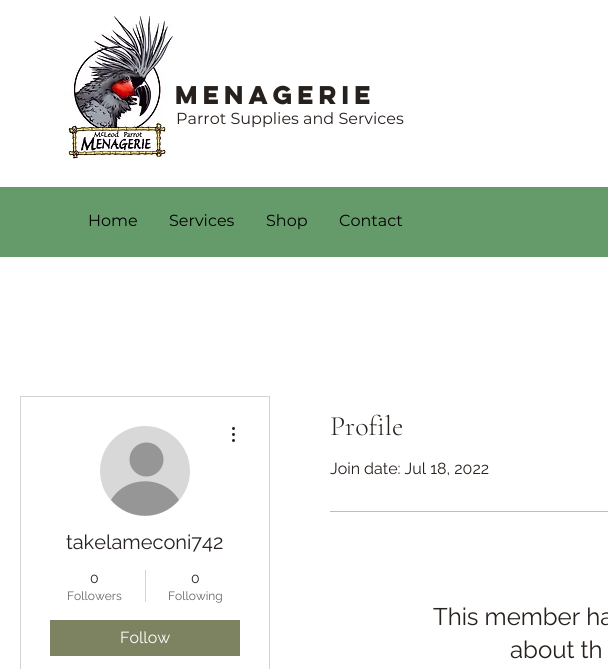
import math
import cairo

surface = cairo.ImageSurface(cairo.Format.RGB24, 608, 669)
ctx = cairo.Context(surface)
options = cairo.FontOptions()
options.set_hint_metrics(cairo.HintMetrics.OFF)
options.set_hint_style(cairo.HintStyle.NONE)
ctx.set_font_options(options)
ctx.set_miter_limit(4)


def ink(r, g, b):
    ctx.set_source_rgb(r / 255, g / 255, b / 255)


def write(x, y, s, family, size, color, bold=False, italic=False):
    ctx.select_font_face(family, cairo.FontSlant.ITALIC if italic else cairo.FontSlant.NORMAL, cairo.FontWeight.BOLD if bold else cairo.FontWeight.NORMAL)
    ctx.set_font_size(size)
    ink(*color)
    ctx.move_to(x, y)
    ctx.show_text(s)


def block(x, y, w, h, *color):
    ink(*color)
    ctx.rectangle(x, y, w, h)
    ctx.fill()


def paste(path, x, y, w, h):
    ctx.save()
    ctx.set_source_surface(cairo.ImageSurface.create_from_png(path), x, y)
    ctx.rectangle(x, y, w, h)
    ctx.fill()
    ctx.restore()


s1 = dict(family="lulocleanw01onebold", size=23, color=(39, 33, 30), bold=True)
s2 = dict(family="Montserrat", size=16, color=(39, 33, 30))
s3 = dict(family="Montserrat", size=16, color=(0, 0, 0))
s4 = dict(family="Raleway", size=20, color=(39, 33, 30))
s5 = dict(family="Raleway", size=14, color=(39, 33, 30))
s6 = dict(family="Raleway", size=12, color=(104, 100, 98))
s7 = dict(family="Raleway", size=16, color=(255, 255, 255))
s8 = dict(family="Cormorant Garamond Light", size=28, color=(39, 33, 30))
s9 = dict(family="Raleway", size=16, color=(39, 33, 30))
s10 = dict(family="Raleway", size=24, color=(39, 33, 30))

ink(255, 255, 255)
ctx.paint()
paste("pic1.png", 63, 16, 112, 144)
write(175, 104, "Menagerie", **s1)
write(176, 124, "Parrot Supplies and Services", **s2)
block(0, 187, 608, 70, 101, 154, 106)
write(88, 226, "Home", **s3)
write(169, 226, "Services", **s3)
write(266, 226, "Shop", **s3)
write(339, 226, "Contact", **s3)
ctx.rectangle(20.5, 396.5, 249, 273)
ink(212, 211, 210)
ctx.set_line_width(1)
ctx.stroke()
ink(216, 216, 216)
ctx.arc(145, 471, 45, 0, 2 * math.pi)
ctx.fill()
ink(150, 150, 150)
ctx.arc(146.5, 459.5, 17, 0, 2 * math.pi)
ctx.fill()
ctx.new_path()
ctx.move_to(179, 500)
ctx.curve_to(161, 521, 129, 521, 111, 500)
ctx.curve_to(126, 475, 164, 475, 179, 500)
ctx.close_path()
ctx.fill()
paste("pic2.png", 232, 427, 3, 15)
write(66, 549, "takelameconi742", **s4)
write(90, 583, "0", **s5)
write(67, 600, "Followers", **s6)
block(145, 570, 1, 32, 212, 211, 210)
write(191, 583, "0", **s5)
write(168, 600, "Following", **s6)
block(50, 620, 190, 36, 125, 130, 96)
write(120, 643, "Follow", **s7)
write(330, 435, "Profile", **s8)
write(330, 474, "Join date: Jul 18, 2022", **s9)
block(330, 511, 278, 1, 190, 188, 188)
write(433, 625, "This member ha", **s10)
write(510, 658, "about th", **s10)
surface.write_to_png("screenshot.png")
